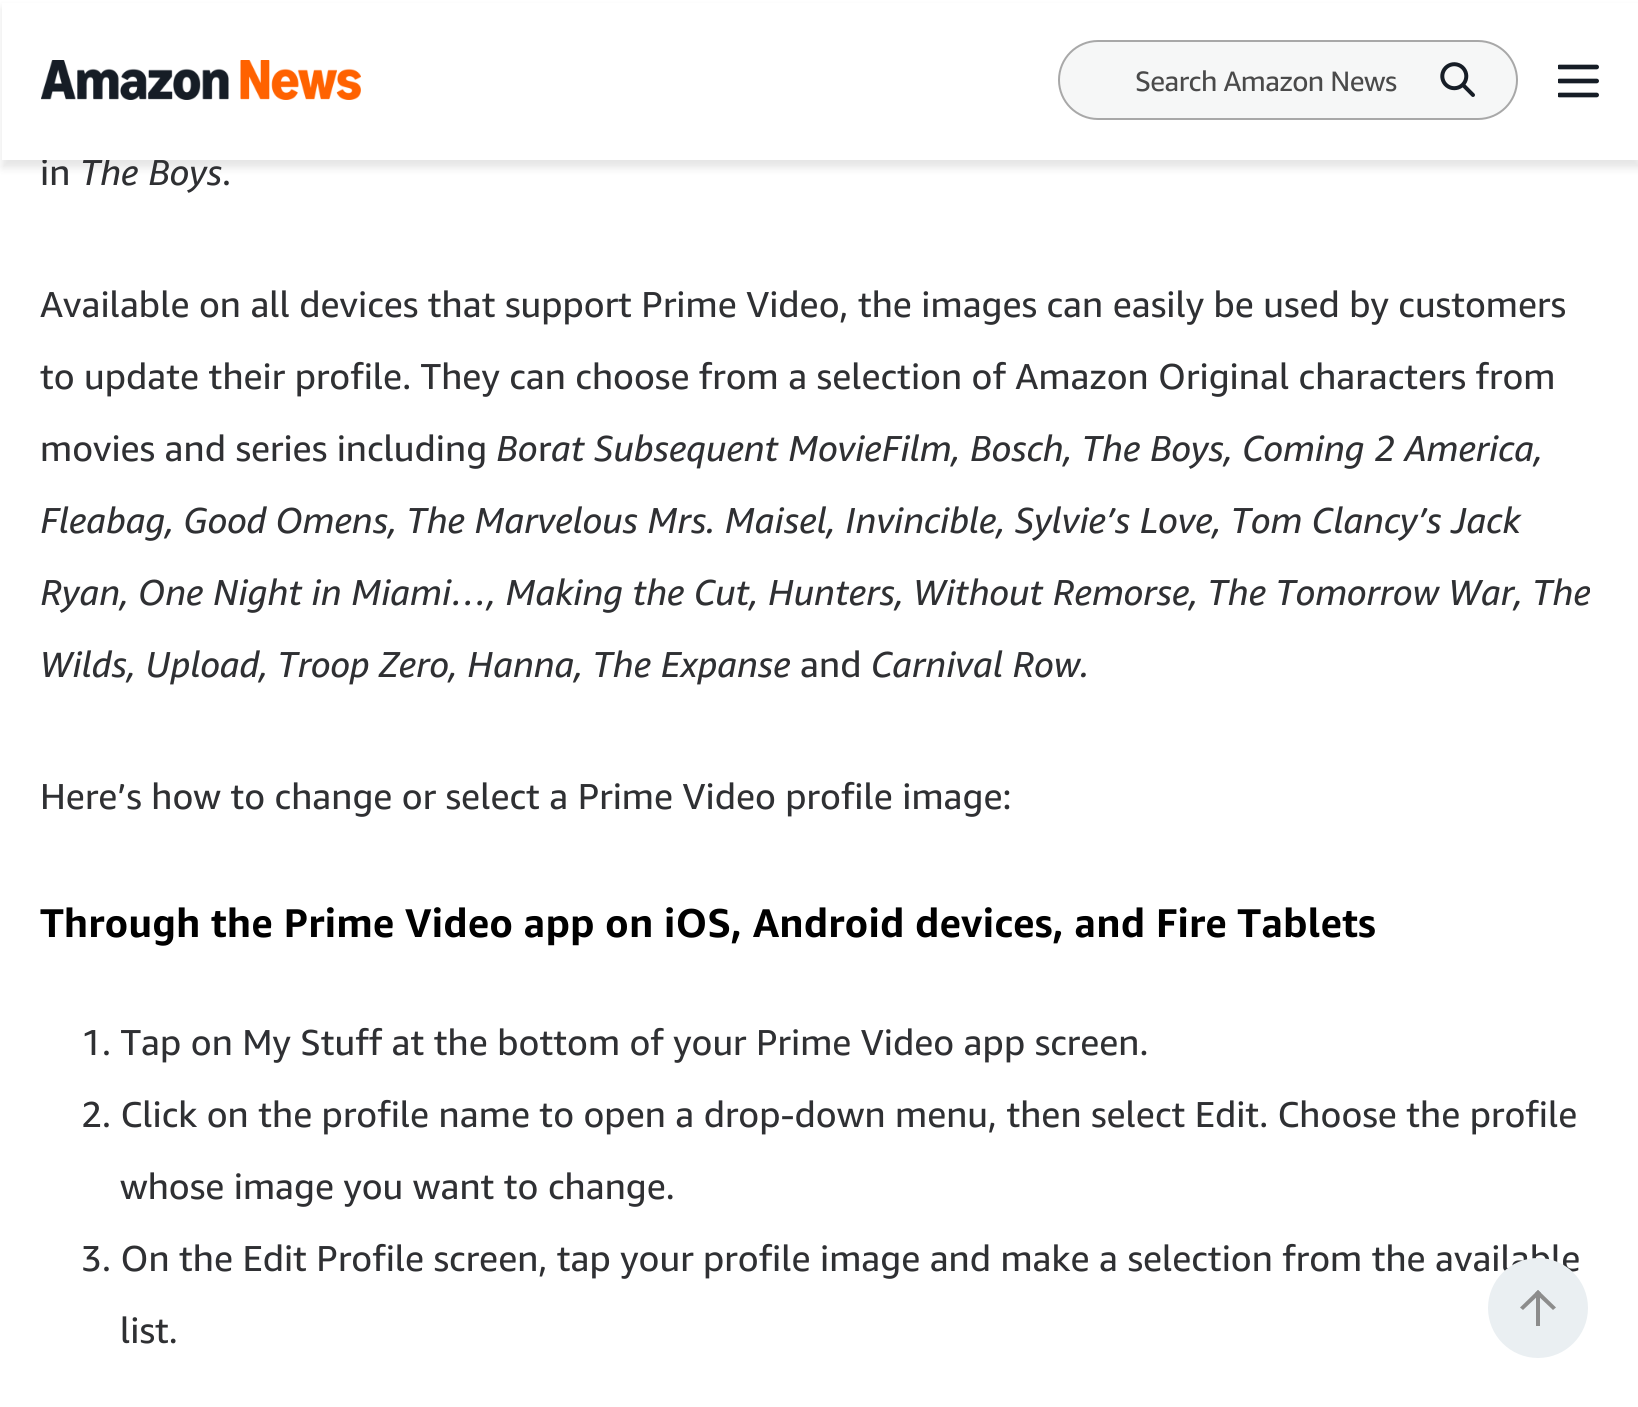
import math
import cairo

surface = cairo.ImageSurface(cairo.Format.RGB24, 1638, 1407)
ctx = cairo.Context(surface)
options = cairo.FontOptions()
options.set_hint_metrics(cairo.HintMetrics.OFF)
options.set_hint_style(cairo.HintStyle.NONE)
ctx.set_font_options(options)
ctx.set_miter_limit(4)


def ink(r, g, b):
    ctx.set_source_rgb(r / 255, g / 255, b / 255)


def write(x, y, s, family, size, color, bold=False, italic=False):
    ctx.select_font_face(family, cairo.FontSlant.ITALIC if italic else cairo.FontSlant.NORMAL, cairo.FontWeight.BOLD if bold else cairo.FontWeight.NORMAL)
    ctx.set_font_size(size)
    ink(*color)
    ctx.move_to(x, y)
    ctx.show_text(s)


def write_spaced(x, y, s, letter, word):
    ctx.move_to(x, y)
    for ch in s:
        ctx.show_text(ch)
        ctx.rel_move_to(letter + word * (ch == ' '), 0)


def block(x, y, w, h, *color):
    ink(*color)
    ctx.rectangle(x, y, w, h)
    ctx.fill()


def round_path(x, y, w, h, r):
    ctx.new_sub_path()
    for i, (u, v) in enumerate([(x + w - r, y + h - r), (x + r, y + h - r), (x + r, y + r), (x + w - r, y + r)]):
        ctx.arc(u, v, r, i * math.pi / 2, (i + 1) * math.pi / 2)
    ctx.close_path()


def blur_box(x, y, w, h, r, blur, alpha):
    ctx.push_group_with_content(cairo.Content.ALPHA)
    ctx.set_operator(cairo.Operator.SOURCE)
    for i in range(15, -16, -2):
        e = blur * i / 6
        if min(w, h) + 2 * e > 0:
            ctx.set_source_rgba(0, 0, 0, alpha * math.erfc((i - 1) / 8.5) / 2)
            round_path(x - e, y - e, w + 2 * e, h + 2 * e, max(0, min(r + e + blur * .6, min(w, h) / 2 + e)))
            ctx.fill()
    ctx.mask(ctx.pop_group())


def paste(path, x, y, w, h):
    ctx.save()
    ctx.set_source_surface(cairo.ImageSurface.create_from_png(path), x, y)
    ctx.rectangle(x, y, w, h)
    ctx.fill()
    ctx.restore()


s1 = dict(family="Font", size=36, color=(47, 48, 51))
s2 = dict(family="Font", size=36, color=(47, 48, 51), italic=True)
s3 = dict(family="Font", size=40, color=(0, 0, 0), bold=True)

ink(255, 255, 255)
ctx.paint()
ink(0, 0, 0)
blur_box(2, 8, 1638, 160, 0, 4, 0.1)
write(40, 185, "in", **s1)
write(80, 185, "The Boys", **s2)
block(2, 3, 1636, 157, 255, 255, 255)
paste("pic1.png", 41, 60, 320, 40)
ink(246, 247, 247)
round_path(1059, 41, 458, 78, 39)
ctx.fill_preserve()
ink(168, 168, 168)
ctx.stroke()
ctx.select_font_face("Font")
ctx.set_font_size(28)
ink(74, 74, 74)
write_spaced(1135, 91, "Search Amazon News", -0.6, 0)
paste("pic2.png", 1440, 62, 35, 35)
paste("pic3.png", 1558, 64, 41, 34)
write(222, 185, ".", **s1)
write(40, 317, "Available on all devices that support Prime Video, the images can easily be used by customers", **s1)
write(40, 389, "to update their profile. They can choose from a selection of Amazon Original characters from", **s1)
write(40, 461, "movies and series including", **s1)
write(496, 461, "Bo", **s2)
write(538, 461, "r", **s1)
write(551, 461, "at Subsequent MovieFilm, Bosch, The Boys, Coming 2 America,", **s2)
write(40, 533, "Fleabag, Good Omens, The Marvelous Mrs. Maisel, Invincible, Sylvie’s Love, Tom Clancy’s Jack", **s2)
write(40, 605, "Ryan, One Night in Miami…, Making the Cut, Hunters, Without Remorse, The Tomorrow War, The", **s2)
write(40, 677, "Wilds, Upload, Troop Zero, Hanna, The Expanse", **s2)
write(800, 677, "and", **s1)
write(871, 677, "Carnival Row.", **s2)
write(40, 809, "Here’s how to change or select a Prime Video profile image:", **s1)
write(40, 937, "Through the Prime Video app on iOS, Android devices, and Fire Tablets", **s3)
write(81, 1055, "1. Tap on My Stuff at the bottom of your Prime Video app screen.", **s1)
write(81, 1127, "2. Click on the profile name to open a drop-down menu, then select Edit. Choose the profile", **s1)
write(120, 1199, "whose image you want to change.", **s1)
write(81, 1271, "3. On the Edit Profile screen, tap your profile image and make a selection from the available", **s1)
write(120, 1343, "list.", **s1)
ink(234, 239, 242)
ctx.new_path()
ctx.arc(1538, 1308, 50, 0, 2 * math.pi)
ctx.fill()
block(1536, 1294, 4, 32, 140, 140, 140)
ctx.new_path()
ctx.move_to(1538, 1290)
ctx.line_to(1541, 1293)
ctx.line_to(1523, 1310)
ctx.line_to(1520, 1307.5)
ctx.close_path()
ctx.fill()
ctx.new_path()
ctx.move_to(1538, 1290)
ctx.line_to(1535, 1293)
ctx.line_to(1553, 1310)
ctx.line_to(1556, 1307.5)
ctx.close_path()
ctx.fill()
surface.write_to_png("screenshot.png")
